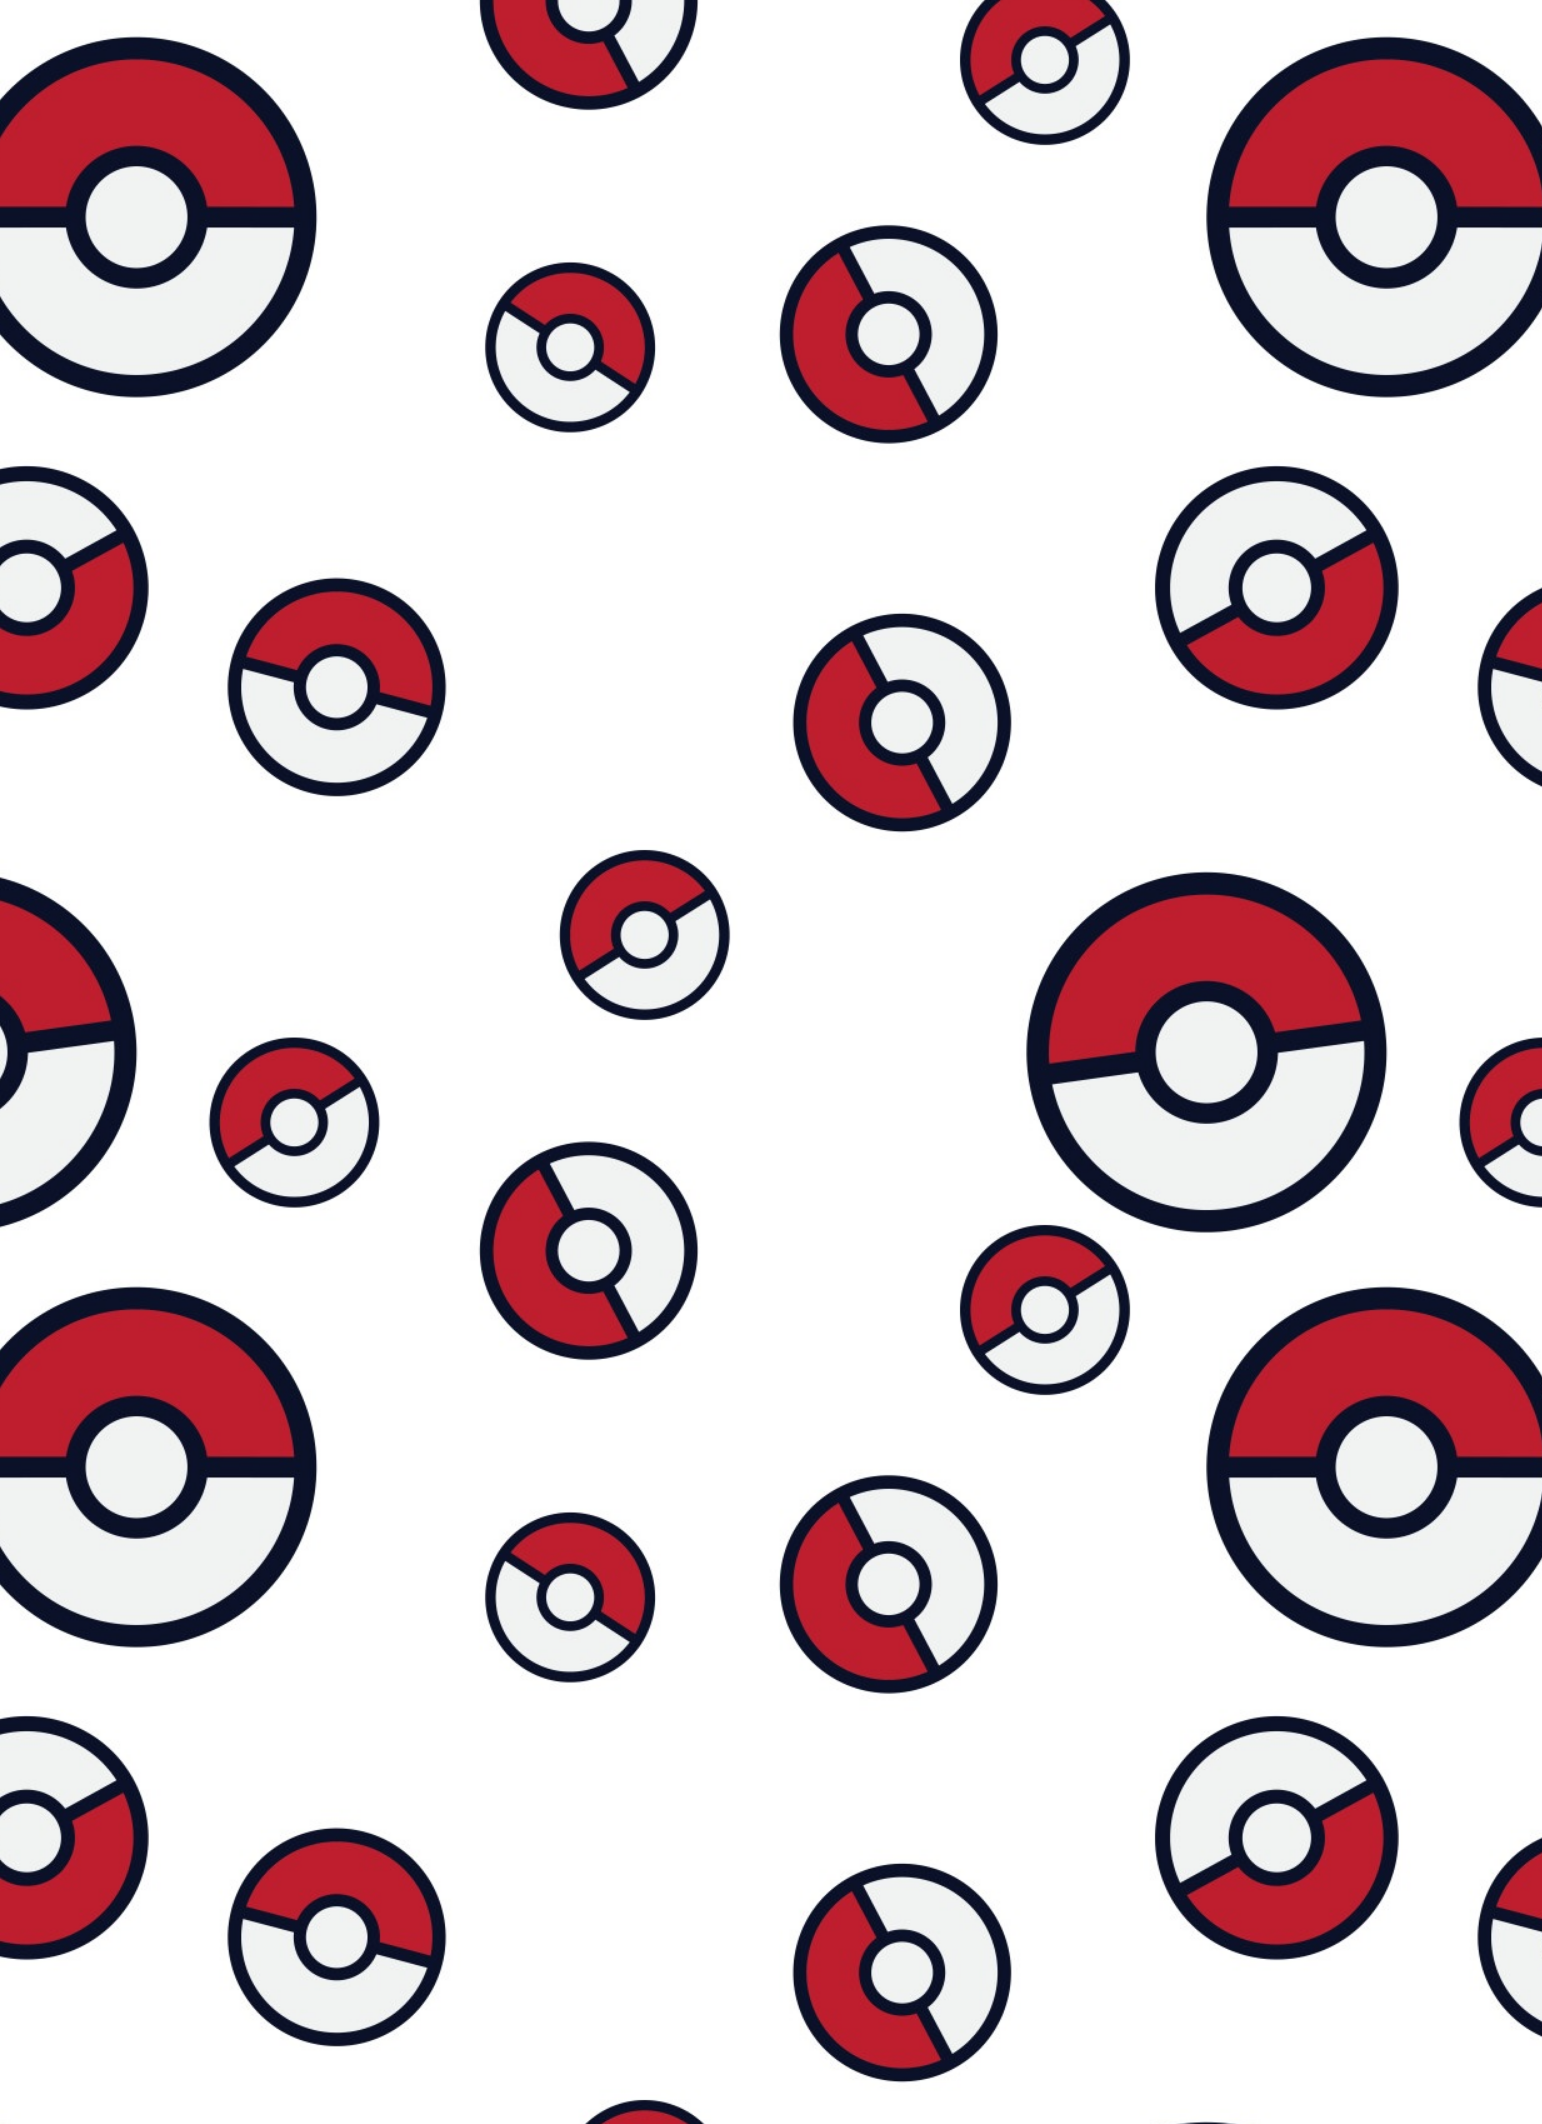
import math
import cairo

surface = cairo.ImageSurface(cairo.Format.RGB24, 1542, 2124)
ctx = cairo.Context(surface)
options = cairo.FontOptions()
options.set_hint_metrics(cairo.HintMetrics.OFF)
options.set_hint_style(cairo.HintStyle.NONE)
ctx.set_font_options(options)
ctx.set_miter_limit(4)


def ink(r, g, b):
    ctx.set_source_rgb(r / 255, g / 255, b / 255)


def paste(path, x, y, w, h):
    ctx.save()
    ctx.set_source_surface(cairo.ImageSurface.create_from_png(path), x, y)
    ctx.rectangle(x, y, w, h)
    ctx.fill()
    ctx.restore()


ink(255, 255, 255)
ctx.paint()
paste("pic1.png", 0, 0, 1542, 2124)
surface.write_to_png("screenshot.png")
